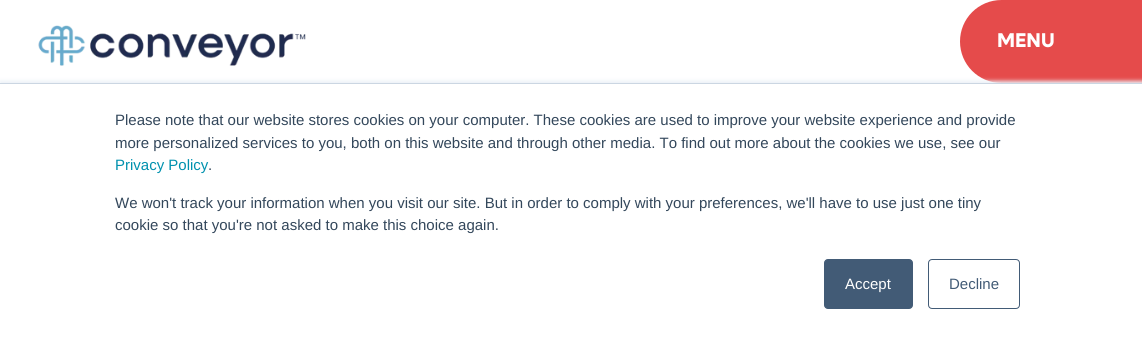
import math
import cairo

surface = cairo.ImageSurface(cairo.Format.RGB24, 1142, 341)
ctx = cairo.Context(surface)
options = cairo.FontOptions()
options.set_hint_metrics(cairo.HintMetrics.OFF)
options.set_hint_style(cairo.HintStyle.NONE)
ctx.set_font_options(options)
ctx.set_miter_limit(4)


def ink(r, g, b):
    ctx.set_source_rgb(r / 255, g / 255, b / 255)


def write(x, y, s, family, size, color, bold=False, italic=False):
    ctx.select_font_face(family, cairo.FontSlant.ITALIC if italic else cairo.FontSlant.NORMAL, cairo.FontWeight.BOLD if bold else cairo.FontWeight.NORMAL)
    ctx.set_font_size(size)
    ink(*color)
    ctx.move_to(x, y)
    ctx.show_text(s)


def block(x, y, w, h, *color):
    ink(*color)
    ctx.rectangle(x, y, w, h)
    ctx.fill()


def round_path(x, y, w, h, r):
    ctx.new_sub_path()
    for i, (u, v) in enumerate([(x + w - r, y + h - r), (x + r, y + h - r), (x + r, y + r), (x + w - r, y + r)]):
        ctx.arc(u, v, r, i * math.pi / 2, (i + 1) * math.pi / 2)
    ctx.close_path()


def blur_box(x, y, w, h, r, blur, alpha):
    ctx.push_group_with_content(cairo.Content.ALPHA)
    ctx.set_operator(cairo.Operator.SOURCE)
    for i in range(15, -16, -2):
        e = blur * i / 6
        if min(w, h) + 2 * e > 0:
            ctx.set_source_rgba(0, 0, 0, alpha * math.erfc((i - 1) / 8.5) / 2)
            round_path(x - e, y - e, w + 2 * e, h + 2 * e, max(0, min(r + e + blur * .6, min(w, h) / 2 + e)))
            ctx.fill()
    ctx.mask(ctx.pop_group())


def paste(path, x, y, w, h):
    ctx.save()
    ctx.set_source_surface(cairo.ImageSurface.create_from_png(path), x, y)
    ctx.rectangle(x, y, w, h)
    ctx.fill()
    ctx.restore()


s1 = dict(family="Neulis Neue", size=20, color=(255, 255, 255), bold=True)
s2 = dict(family="Liberation Sans", size=15, color=(51, 71, 91))
s3 = dict(family="Liberation Sans", size=15, color=(0, 145, 174))
s4 = dict(family="Liberation Sans", size=15, color=(255, 255, 255))
s5 = dict(family="Liberation Sans", size=15, color=(66, 91, 118))

ink(255, 255, 255)
ctx.paint()
paste("pic1.png", 38, 25, 268, 41)
ink(229, 75, 75)
ctx.new_path()
ctx.move_to(1001.5, 0)
ctx.line_to(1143, 0)
ctx.line_to(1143, 83)
ctx.line_to(1001.5, 83)
ctx.curve_to(978.5, 83, 960, 64.5, 960, 41.5)
ctx.curve_to(960, 18.5, 978.5, 0, 1001.5, 0)
ctx.close_path()
ctx.fill()
write(997, 47, "MENU", **s1)
ink(234, 240, 246)
blur_box(0, 81, 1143, 259, 0, 2, 1)
block(0, 84, 1142, 257, 255, 255, 255)
block(0, 83, 1142, 1, 203, 214, 226)
write(115, 125, "Please note that our website stores cookies on your computer. These cookies are used to improve your website experience and provide", **s2)
write(115, 148, "more personalized services to you, both on this website and through other media. To find out more about the cookies we use, see our", **s2)
write(115, 170, "Privacy Policy", **s3)
write(208, 170, ".", **s2)
write(115, 208, "We won't track your information when you visit our site. But in order to comply with your preferences, we'll have to use just one tiny", **s2)
write(115, 230, "cookie so that you're not asked to make this choice again.", **s2)
ink(66, 91, 118)
round_path(824.5, 259.5, 88, 49, 3.5)
ctx.fill_preserve()
ctx.set_line_width(1)
ctx.stroke()
write(845, 289, "Accept", **s4)
round_path(928.5, 259.5, 91, 49, 3.5)
ink(66, 91, 118)
ctx.stroke()
write(949, 289, "Decline", **s5)
surface.write_to_png("screenshot.png")
